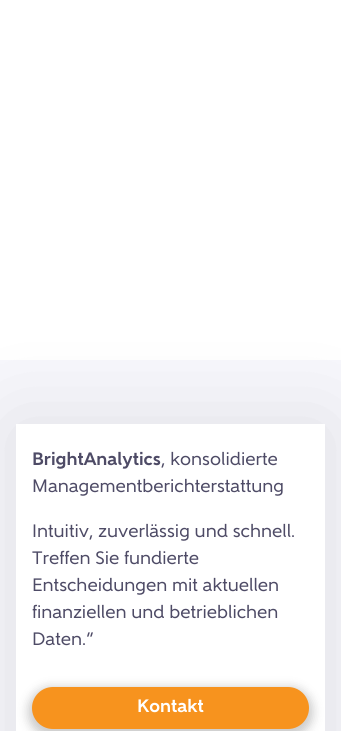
import math
import cairo

surface = cairo.ImageSurface(cairo.Format.RGB24, 341, 731)
ctx = cairo.Context(surface)
options = cairo.FontOptions()
options.set_hint_metrics(cairo.HintMetrics.OFF)
options.set_hint_style(cairo.HintStyle.NONE)
ctx.set_font_options(options)
ctx.set_miter_limit(4)


def ink(r, g, b):
    ctx.set_source_rgb(r / 255, g / 255, b / 255)


def write(x, y, s, family, size, color, bold=False, italic=False):
    ctx.select_font_face(family, cairo.FontSlant.ITALIC if italic else cairo.FontSlant.NORMAL, cairo.FontWeight.BOLD if bold else cairo.FontWeight.NORMAL)
    ctx.set_font_size(size)
    ink(*color)
    ctx.move_to(x, y)
    ctx.show_text(s)


def block(x, y, w, h, *color):
    ink(*color)
    ctx.rectangle(x, y, w, h)
    ctx.fill()


def round_path(x, y, w, h, r):
    ctx.new_sub_path()
    for i, (u, v) in enumerate([(x + w - r, y + h - r), (x + r, y + h - r), (x + r, y + r), (x + w - r, y + r)]):
        ctx.arc(u, v, r, i * math.pi / 2, (i + 1) * math.pi / 2)
    ctx.close_path()


def blur_box(x, y, w, h, r, blur, alpha):
    ctx.push_group_with_content(cairo.Content.ALPHA)
    ctx.set_operator(cairo.Operator.SOURCE)
    for i in range(15, -16, -2):
        e = blur * i / 6
        if min(w, h) + 2 * e > 0:
            ctx.set_source_rgba(0, 0, 0, alpha * math.erfc((i - 1) / 8.5) / 2)
            round_path(x - e, y - e, w + 2 * e, h + 2 * e, max(0, min(r + e + blur * .6, min(w, h) / 2 + e)))
            ctx.fill()
    ctx.mask(ctx.pop_group())


s1 = dict(family="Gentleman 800", size=18, color=(78, 75, 102), bold=True)
s2 = dict(family="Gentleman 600", size=18, color=(78, 75, 102))
s3 = dict(family="Gentleman 800", size=18, color=(255, 255, 255), bold=True)

ink(255, 255, 255)
ctx.paint()
block(0, 360, 341, 371, 247, 247, 252)
ink(0, 0, 0)
blur_box(12, 424, 317, 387, 0, 45, 0.1)
block(16, 424, 309, 307, 255, 255, 255)
write(32, 465, "BrightAnalytics", **s1)
write(161, 465, ", konsolidierte", **s2)
write(32, 492, "Managementberichterstattung", **s2)
write(32, 537, "Intuitiv, zuverlässig und schnell.", **s2)
write(32, 564, "Treffen Sie fundierte", **s2)
write(32, 591, "Entscheidungen mit aktuellen", **s2)
write(32, 618, "finanziellen und betrieblichen", **s2)
write(32, 645, "Daten.”", **s2)
ink(0, 0, 0)
blur_box(28, 687, 285, 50, 25, 5, 0.2)
ink(247, 147, 30)
round_path(32, 687, 277, 42, 21)
ctx.fill()
write(137, 712, "Kontakt", **s3)
surface.write_to_png("screenshot.png")
